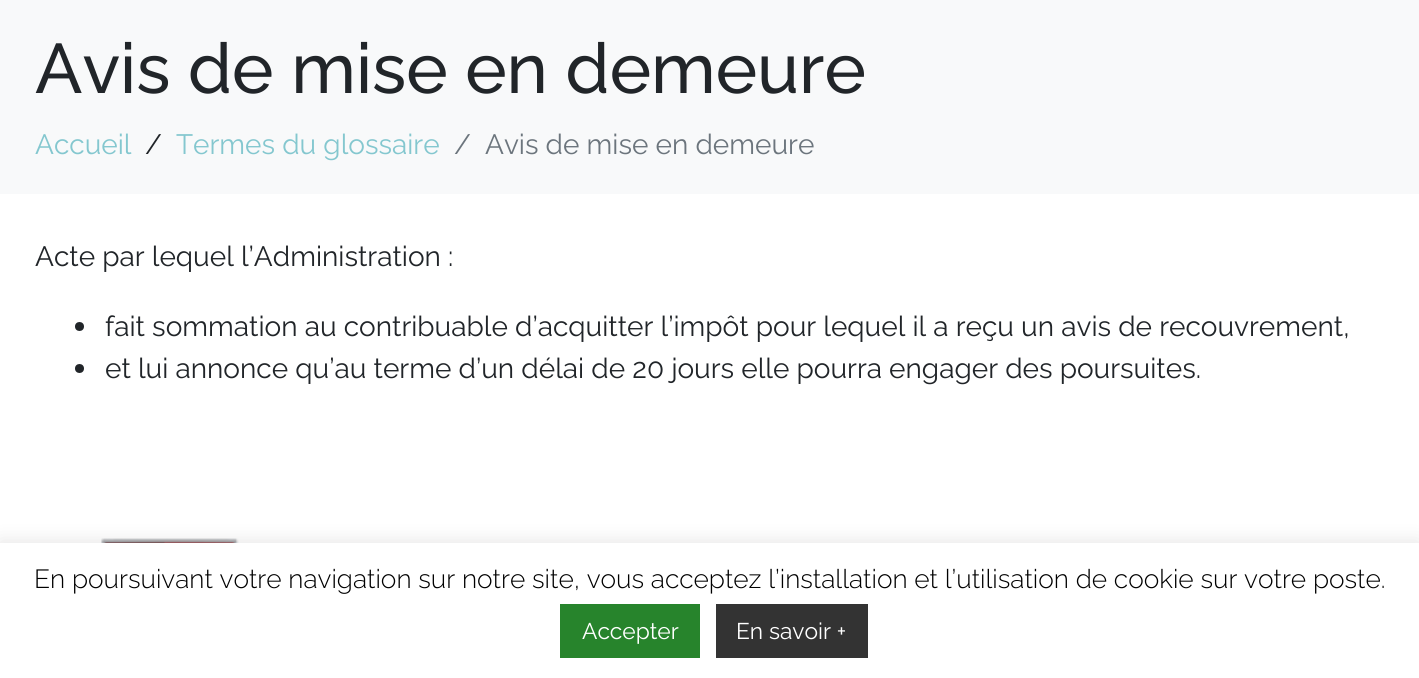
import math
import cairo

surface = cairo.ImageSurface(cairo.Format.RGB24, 1419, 678)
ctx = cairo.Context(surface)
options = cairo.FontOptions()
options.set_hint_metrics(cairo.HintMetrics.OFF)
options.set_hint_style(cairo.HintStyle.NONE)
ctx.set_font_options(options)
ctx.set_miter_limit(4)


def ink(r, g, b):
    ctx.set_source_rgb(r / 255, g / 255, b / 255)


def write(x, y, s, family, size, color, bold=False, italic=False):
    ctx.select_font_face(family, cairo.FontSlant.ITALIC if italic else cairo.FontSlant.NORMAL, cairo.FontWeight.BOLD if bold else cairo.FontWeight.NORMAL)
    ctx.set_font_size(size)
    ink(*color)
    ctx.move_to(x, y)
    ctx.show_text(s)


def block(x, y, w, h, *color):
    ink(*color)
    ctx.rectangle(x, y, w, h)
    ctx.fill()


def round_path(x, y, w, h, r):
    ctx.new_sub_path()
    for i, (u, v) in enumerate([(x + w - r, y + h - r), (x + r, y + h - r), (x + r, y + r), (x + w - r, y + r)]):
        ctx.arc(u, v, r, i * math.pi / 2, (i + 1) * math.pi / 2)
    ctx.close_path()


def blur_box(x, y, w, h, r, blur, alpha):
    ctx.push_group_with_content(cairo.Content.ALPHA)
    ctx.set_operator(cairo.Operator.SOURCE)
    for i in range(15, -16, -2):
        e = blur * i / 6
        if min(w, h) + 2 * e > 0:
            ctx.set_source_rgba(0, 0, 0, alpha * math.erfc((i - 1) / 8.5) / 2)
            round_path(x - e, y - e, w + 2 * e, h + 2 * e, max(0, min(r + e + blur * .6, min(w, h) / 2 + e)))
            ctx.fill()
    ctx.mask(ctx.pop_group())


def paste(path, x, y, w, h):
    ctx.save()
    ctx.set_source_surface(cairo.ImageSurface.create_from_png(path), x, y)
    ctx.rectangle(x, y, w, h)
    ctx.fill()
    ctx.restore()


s1 = dict(family="Raleway Medium", size=70, color=(33, 37, 41))
s2 = dict(family="Raleway", size=28, color=(132, 199, 207))
s3 = dict(family="Raleway", size=28, color=(33, 37, 41))
s4 = dict(family="Raleway", size=28, color=(108, 117, 125))
s5 = dict(family="Raleway Light", size=26.25, color=(0, 0, 0))
s6 = dict(family="Raleway", size=22.75, color=(255, 255, 255))

ink(255, 255, 255)
ctx.paint()
block(0, 0, 1419, 194, 248, 249, 250)
write(35, 93, "Avis de mise en demeure", **s1)
write(35, 154, "Accueil", **s2)
write(145, 154, "/", **s3)
write(176, 154, "Termes du glossaire", **s2)
write(454, 154, "/", **s4)
write(485, 154, "Avis de mise en demeure", **s4)
write(35, 266, "Acte par lequel l’Administration :", **s3)
ctx.new_path()
ctx.arc(79.5, 326.5, 4.5, 0, 2 * math.pi)
ctx.fill()
write(105, 336, "fait sommation au contribuable d’acquitter l’impôt pour lequel il a reçu un avis de recouvrement,", **s3)
ctx.new_path()
ctx.arc(79.5, 368.5, 4.5, 0, 2 * math.pi)
ctx.fill()
write(105, 378, "et lui annonce qu’au terme d’un délai de 20 jours elle pourra engager des poursuites.", **s3)
paste("pic1.png", 101, 538, 138, 5)
ink(172, 171, 171)
blur_box(0, 541, 1419, 136, 0, 9, 0.3)
block(0, 543, 1419, 135, 255, 255, 255)
write(34, 588, "En poursuivant votre navigation sur notre site, vous acceptez l’installation et l’utilisation de cookie sur votre poste.", **s5)
block(560, 604, 140, 54, 39, 132, 44)
write(582, 639, "Accepter", **s6)
block(716, 604, 152, 54, 51, 51, 51)
write(736, 639, "En savoir +", **s6)
surface.write_to_png("screenshot.png")
